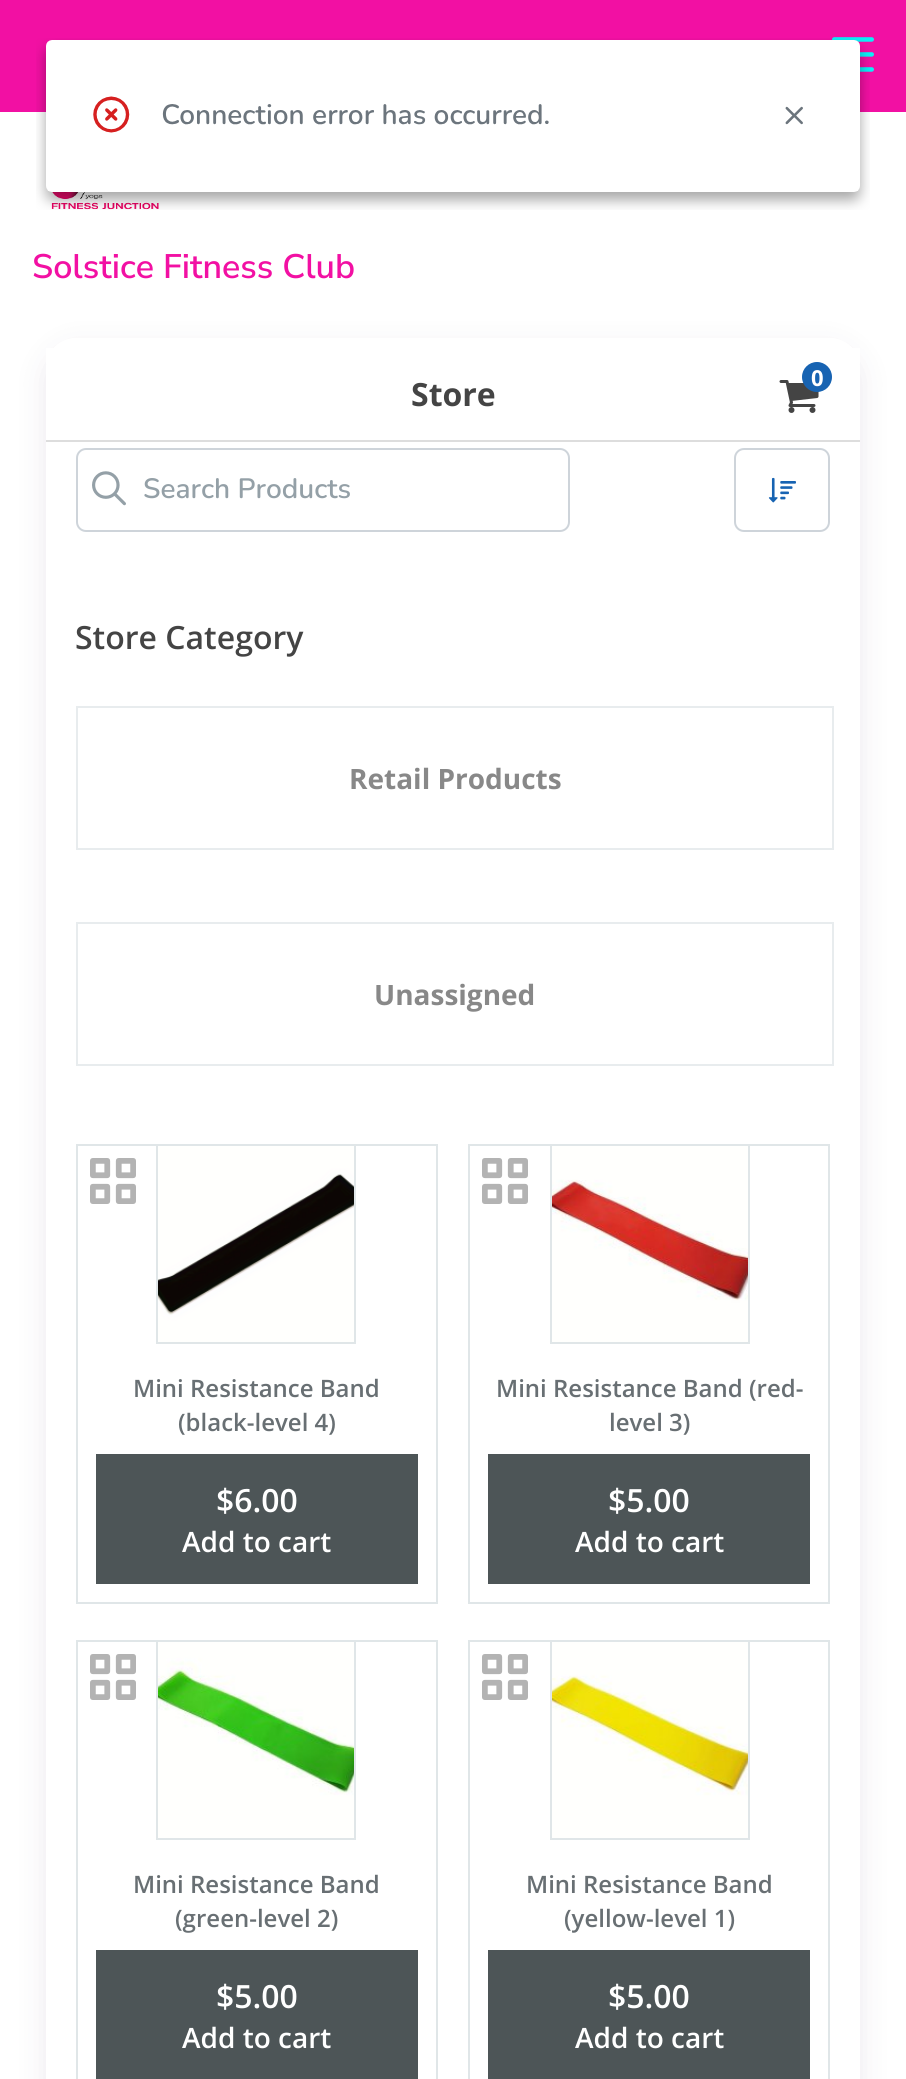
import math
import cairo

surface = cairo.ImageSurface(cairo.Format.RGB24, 906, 2079)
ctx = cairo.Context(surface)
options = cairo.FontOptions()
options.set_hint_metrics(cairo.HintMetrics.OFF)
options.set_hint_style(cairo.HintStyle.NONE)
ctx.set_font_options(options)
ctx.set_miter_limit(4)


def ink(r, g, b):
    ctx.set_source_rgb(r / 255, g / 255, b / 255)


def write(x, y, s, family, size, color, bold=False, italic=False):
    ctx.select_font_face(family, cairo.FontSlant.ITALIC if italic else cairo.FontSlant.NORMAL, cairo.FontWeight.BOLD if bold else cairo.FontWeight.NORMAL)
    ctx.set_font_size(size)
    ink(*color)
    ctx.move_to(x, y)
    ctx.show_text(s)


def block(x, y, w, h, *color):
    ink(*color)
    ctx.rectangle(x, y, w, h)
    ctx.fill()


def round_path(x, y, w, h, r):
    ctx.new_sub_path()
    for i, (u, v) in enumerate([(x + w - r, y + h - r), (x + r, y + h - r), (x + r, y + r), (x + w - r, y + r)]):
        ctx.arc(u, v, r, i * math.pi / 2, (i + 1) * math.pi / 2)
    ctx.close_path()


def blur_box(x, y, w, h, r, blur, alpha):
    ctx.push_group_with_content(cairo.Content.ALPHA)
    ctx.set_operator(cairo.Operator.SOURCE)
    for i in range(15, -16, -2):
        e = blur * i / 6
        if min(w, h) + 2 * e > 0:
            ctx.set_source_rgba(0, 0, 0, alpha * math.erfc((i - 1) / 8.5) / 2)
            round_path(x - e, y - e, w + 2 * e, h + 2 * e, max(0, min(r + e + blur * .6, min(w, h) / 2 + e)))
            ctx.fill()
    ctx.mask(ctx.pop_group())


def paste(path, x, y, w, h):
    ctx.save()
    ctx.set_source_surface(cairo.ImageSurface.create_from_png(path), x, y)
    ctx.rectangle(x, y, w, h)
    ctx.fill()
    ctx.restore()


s1 = dict(family="Nunito Sans SemiBold", size=34, color=(242, 16, 163))
s2 = dict(family="Open Sans", size=22, color=(255, 255, 255), bold=True)
s3 = dict(family="Open Sans", size=32, color=(68, 68, 68), bold=True)
s4 = dict(family="Nunito SemiBold", size=28, color=(148, 160, 167))
s5 = dict(family="Open Sans SemiBold", size=32, color=(68, 68, 68))
s6 = dict(family="Open Sans", size=28, color=(136, 136, 136), bold=True)
s7 = dict(family="Open Sans SemiBold", size=24, color=(104, 111, 115))
s8 = dict(family="Open Sans SemiBold", size=32, color=(255, 255, 255))
s9 = dict(family="Open Sans SemiBold", size=28, color=(255, 255, 255))

ink(255, 255, 255)
ctx.paint()
block(0, 0, 906, 112, 242, 16, 163)
paste("pic2.png", 832, 37, 42, 35)
paste("pic3.png", 51, 191, 108, 19)
paste("pic1.png", 36, 38, 834, 172)
write(32, 278, "Solstice Fitness Club", **s1)
ctx.save()
ctx.set_fill_rule(cairo.FillRule.EVEN_ODD)
ctx.new_path()
ctx.move_to(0, 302)
ctx.line_to(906, 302)
ctx.line_to(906, 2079)
ctx.line_to(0, 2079)
ctx.close_path()
ctx.move_to(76, 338)
ctx.line_to(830, 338)
ctx.curve_to(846.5, 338, 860, 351.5, 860, 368)
ctx.line_to(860, 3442)
ctx.curve_to(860, 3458.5, 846.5, 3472, 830, 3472)
ctx.line_to(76, 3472)
ctx.curve_to(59.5, 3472, 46, 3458.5, 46, 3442)
ctx.line_to(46, 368)
ctx.curve_to(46, 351.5, 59.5, 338, 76, 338)
ctx.close_path()
ctx.clip()
ink(35, 8, 61)
blur_box(46, 348, 814, 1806, 30, 15, 0.09)
ctx.restore()
block(46, 348, 814, 16, 255, 255, 255)
block(46, 440, 814, 2, 221, 221, 221)
paste("pic4.png", 779, 380, 40, 33)
ink(23, 99, 178)
ctx.arc(817, 377, 15, 0, 2 * math.pi)
ctx.fill()
write(811, 386, "0", **s2)
write(411, 406, "Store", **s3)
round_path(77, 449, 492, 82, 9)
ink(206, 212, 218)
ctx.stroke()
paste("pic5.png", 92, 471, 34, 35)
write(143, 498, "Search Products", **s4)
round_path(735, 449, 94, 82, 9)
ink(206, 212, 218)
ctx.stroke()
paste("pic6.png", 768, 477, 28, 26)
write(75, 649, "Store Category", **s5)
ctx.rectangle(77, 707, 756, 142)
ink(232, 236, 238)
ctx.stroke()
write(349, 789, "Retail Products", **s6)
ctx.rectangle(77, 923, 756, 142)
ink(232, 236, 238)
ctx.stroke()
write(374, 1005, "Unassigned", **s6)
ctx.rectangle(77, 1145, 360, 458)
ink(224, 230, 232)
ctx.stroke()
paste("pic7.png", 158, 1146, 196, 196)
ctx.rectangle(157, 1145, 198, 198)
ctx.stroke()
paste("pic8.png", 90, 1158, 46, 46)
write(133, 1397, "Mini Resistance Band", **s7)
write(178, 1431, "(black-level 4)", **s7)
block(96, 1454, 322, 130, 77, 85, 87)
write(216, 1512, "$6.00", **s8)
write(182, 1552, "Add to cart", **s9)
ctx.rectangle(469, 1145, 360, 458)
ink(224, 230, 232)
ctx.stroke()
paste("pic9.png", 552, 1146, 196, 196)
ctx.rectangle(551, 1145, 198, 198)
ctx.stroke()
paste("pic8.png", 482, 1158, 46, 46)
write(496, 1397, "Mini Resistance Band (red-", **s7)
write(609, 1431, "level 3)", **s7)
block(488, 1454, 322, 130, 77, 85, 87)
write(608, 1512, "$5.00", **s8)
write(575, 1552, "Add to cart", **s9)
ctx.rectangle(77, 1641, 360, 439)
ink(224, 230, 232)
ctx.stroke()
paste("pic10.png", 158, 1642, 196, 196)
ctx.rectangle(157, 1641, 198, 198)
ctx.stroke()
paste("pic8.png", 90, 1654, 46, 46)
write(133, 1893, "Mini Resistance Band", **s7)
write(175, 1927, "(green-level 2)", **s7)
block(96, 1950, 322, 129, 77, 85, 87)
write(216, 2008, "$5.00", **s8)
write(182, 2048, "Add to cart", **s9)
ctx.rectangle(469, 1641, 360, 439)
ink(224, 230, 232)
ctx.stroke()
paste("pic11.png", 552, 1642, 196, 196)
ctx.rectangle(551, 1641, 198, 198)
ctx.stroke()
paste("pic8.png", 482, 1654, 46, 46)
write(526, 1893, "Mini Resistance Band", **s7)
write(564, 1927, "(yellow-level 1)", **s7)
block(488, 1950, 322, 129, 77, 85, 87)
write(608, 2008, "$5.00", **s8)
write(575, 2048, "Add to cart", **s9)
surface.write_to_png("screenshot.png")
